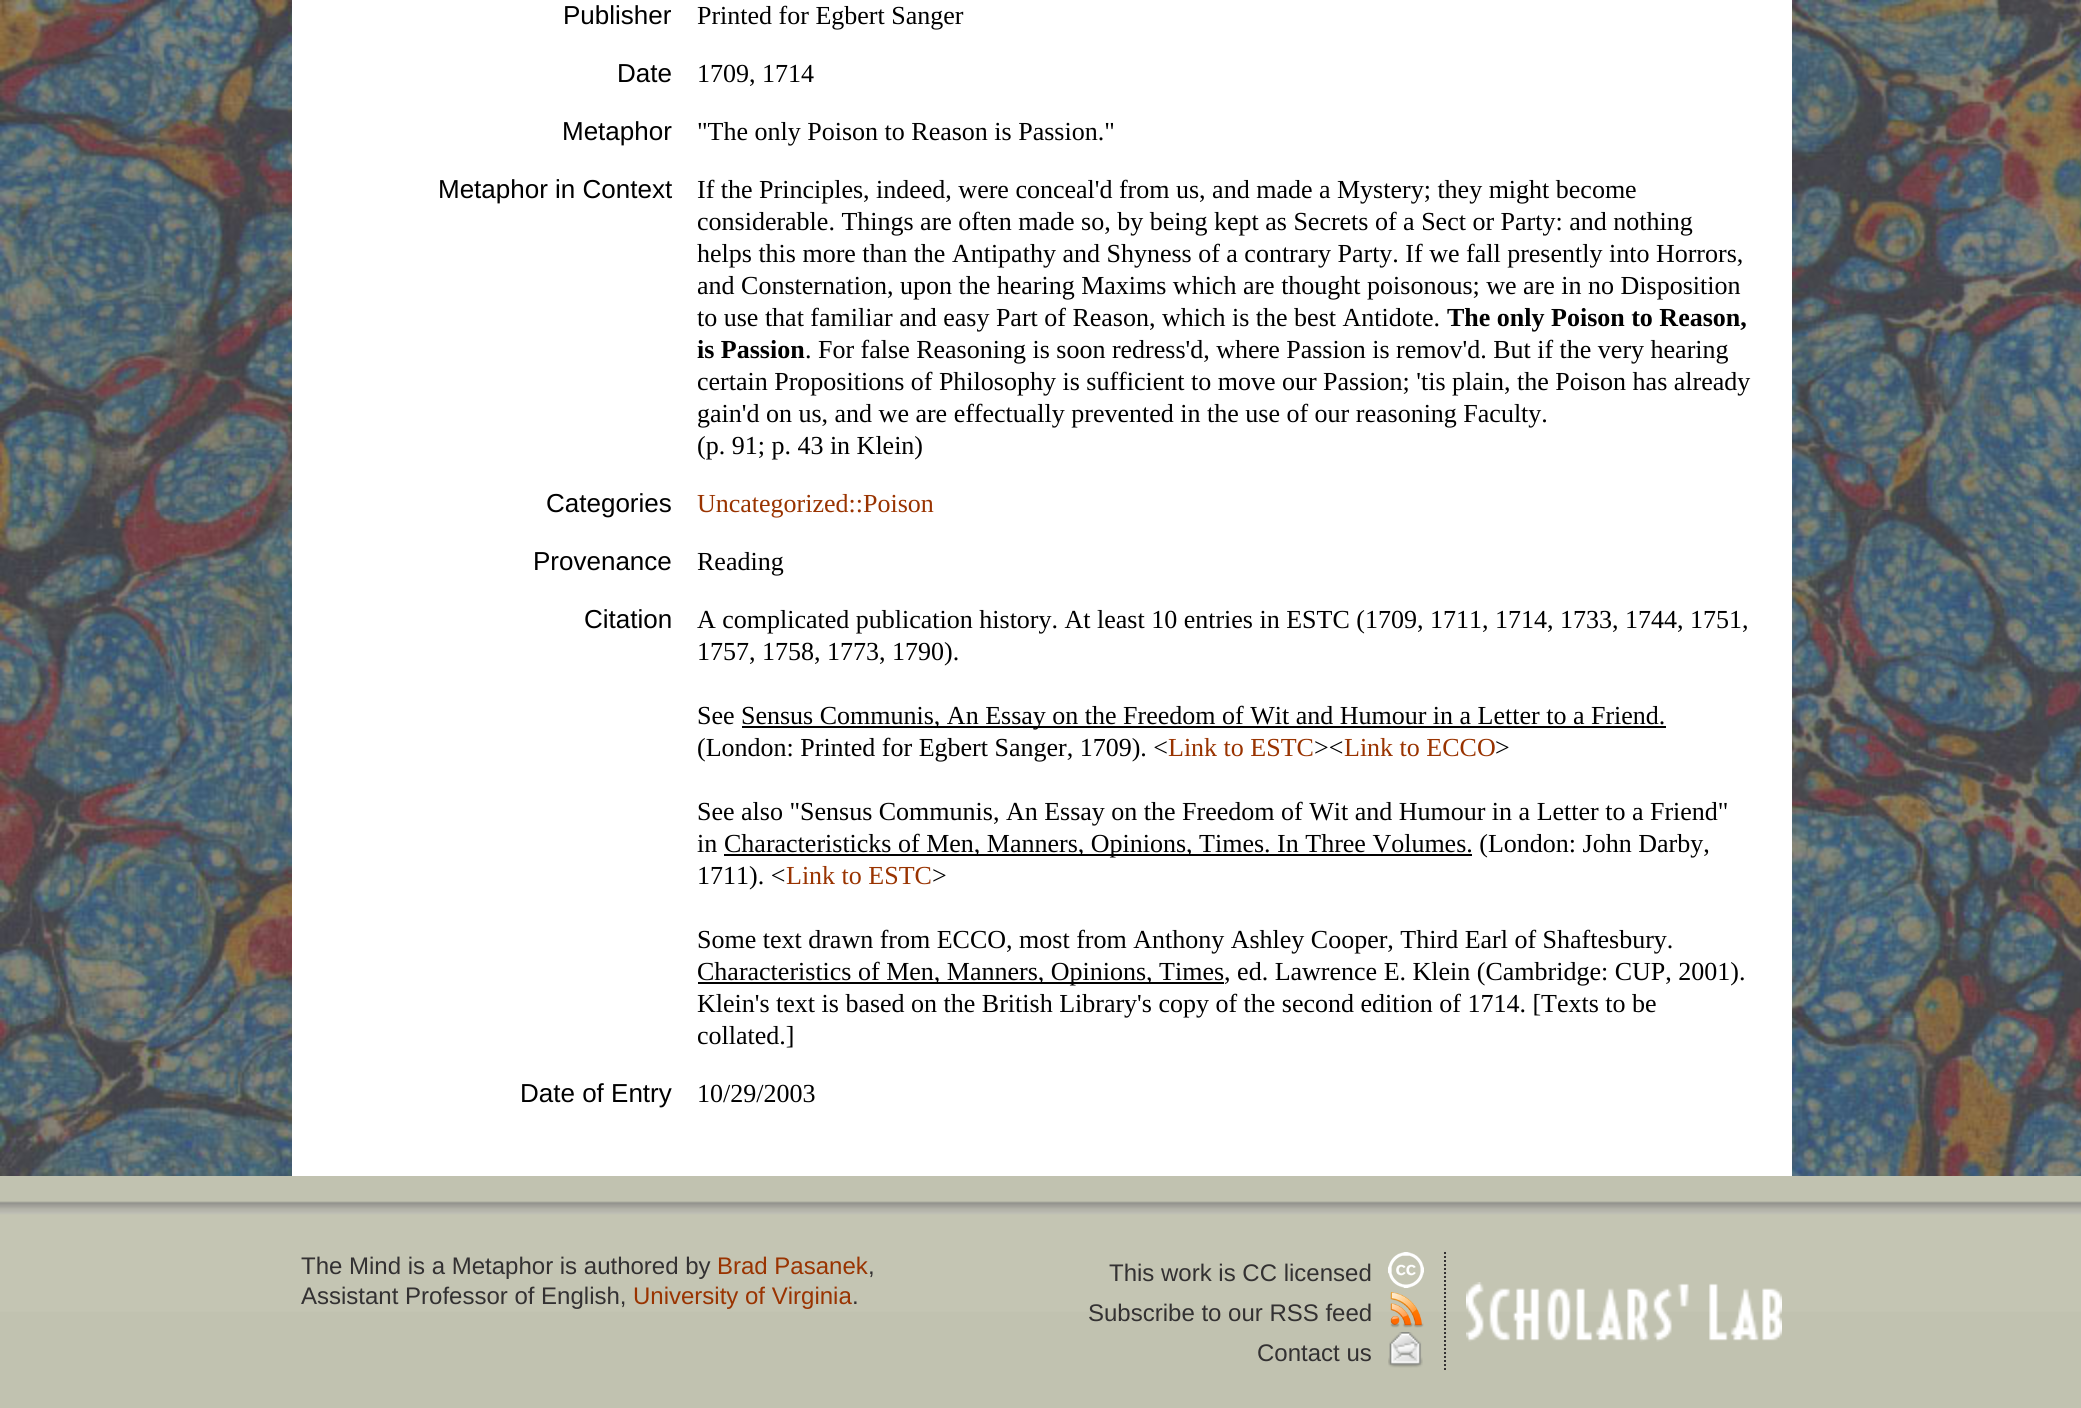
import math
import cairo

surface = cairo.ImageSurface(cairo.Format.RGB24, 2081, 1408)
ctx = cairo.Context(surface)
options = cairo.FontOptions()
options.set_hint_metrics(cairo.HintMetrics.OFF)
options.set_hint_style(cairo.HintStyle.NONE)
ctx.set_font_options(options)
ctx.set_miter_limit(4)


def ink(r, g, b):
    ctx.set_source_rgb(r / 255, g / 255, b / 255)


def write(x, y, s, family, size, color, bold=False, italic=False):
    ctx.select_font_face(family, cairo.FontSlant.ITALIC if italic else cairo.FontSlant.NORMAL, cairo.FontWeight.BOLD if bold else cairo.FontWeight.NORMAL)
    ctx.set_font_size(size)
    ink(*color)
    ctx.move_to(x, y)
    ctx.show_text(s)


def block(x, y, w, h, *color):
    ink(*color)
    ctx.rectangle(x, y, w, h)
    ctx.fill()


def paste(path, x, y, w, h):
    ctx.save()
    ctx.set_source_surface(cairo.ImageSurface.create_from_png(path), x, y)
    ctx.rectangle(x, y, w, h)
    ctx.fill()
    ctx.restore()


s1 = dict(family="Liberation Sans", size=26, color=(0, 0, 0))
s2 = dict(family="Liberation Serif", size=26, color=(0, 0, 0))
s3 = dict(family="Liberation Serif", size=26, color=(0, 0, 0), bold=True)
s4 = dict(family="Liberation Serif", size=26, color=(153, 51, 0))
s5 = dict(family="Liberation Sans", size=24, color=(51, 49, 50))
s6 = dict(family="Liberation Sans", size=24, color=(153, 51, 0))

ink(255, 255, 255)
ctx.paint()
paste("pic1.png", 0, 0, 2081, 1176)
block(292, 0, 1500, 1176, 255, 255, 255)
write(563, 24, "Publisher", **s1)
write(697, 24, "Printed for Egbert Sanger", **s2)
write(617, 82, "Date", **s1)
write(697, 82, "1709, 1714", **s2)
write(562, 140, "Metaphor", **s1)
write(697, 140, "\"The only Poison to Reason is Passion.\"", **s2)
write(438, 198, "Metaphor in Context", **s1)
write(697, 198, "If the Principles, indeed, were conceal'd from us, and made a Mystery; they might become", **s2)
write(697, 230, "considerable. Things are often made so, by being kept as Secrets of a Sect or Party: and nothing", **s2)
write(697, 262, "helps this more than the Antipathy and Shyness of a contrary Party. If we fall presently into Horrors,", **s2)
write(697, 294, "and Consternation, upon the hearing Maxims which are thought poisonous; we are in no Disposition", **s2)
write(697, 326, "to use that familiar and easy Part of Reason, which is the best Antidote.", **s2)
write(1447, 326, "The only Poison to Reason,", **s3)
write(697, 358, "is Passion", **s3)
write(805, 358, ". For false Reasoning is soon redress'd, where Passion is remov'd. But if the very hearing", **s2)
write(697, 390, "certain Propositions of Philosophy is sufficient to move our Passion; 'tis plain, the Poison has already", **s2)
write(697, 422, "gain'd on us, and we are effectually prevented in the use of our reasoning Faculty.", **s2)
write(697, 454, "(p. 91; p. 43 in Klein)", **s2)
write(546, 512, "Categories", **s1)
write(697, 512, "Uncategorized::Poison", **s4)
write(533, 570, "Provenance", **s1)
write(697, 570, "Reading", **s2)
write(584, 628, "Citation", **s1)
write(697, 628, "A complicated publication history. At least 10 entries in ESTC (1709, 1711, 1714, 1733, 1744, 1751,", **s2)
write(697, 660, "1757, 1758, 1773, 1790).", **s2)
write(697, 724, "See", **s2)
block(742, 726, 924, 2, 0, 0, 0)
write(741, 724, "Sensus Communis, An Essay on the Freedom of Wit and Humour in a Letter to a Friend.", **s2)
write(697, 756, "(London: Printed for Egbert Sanger, 1709). <", **s2)
write(1168, 756, "Link to ESTC", **s4)
write(1314, 756, "><", **s2)
write(1344, 756, "Link to ECCO", **s4)
write(1495, 756, ">", **s2)
write(697, 820, "See also \"Sensus Communis, An Essay on the Freedom of Wit and Humour in a Letter to a Friend\"", **s2)
write(697, 852, "in", **s2)
block(724, 854, 748, 2, 0, 0, 0)
write(724, 852, "Characteristicks of Men, Manners, Opinions, Times. In Three Volumes. (London: John Darby,", **s2)
write(697, 884, "1711). <", **s2)
write(786, 884, "Link to ESTC", **s4)
write(932, 884, ">", **s2)
write(697, 948, "Some text drawn from ECCO, most from Anthony Ashley Cooper, Third Earl of Shaftesbury.", **s2)
block(698, 982, 526, 2, 0, 0, 0)
write(697, 980, "Characteristics of Men, Manners, Opinions, Times, ed. Lawrence E. Klein (Cambridge: CUP, 2001).", **s2)
write(697, 1012, "Klein's text is based on the British Library's copy of the second edition of 1714. [Texts to be", **s2)
write(697, 1044, "collated.]", **s2)
write(520, 1102, "Date of Entry", **s1)
write(697, 1102, "10/29/2003", **s2)
paste("pic2.png", 0, 1176, 2081, 232)
write(301, 1274, "The Mind is a Metaphor is authored by", **s5)
write(717, 1274, "Brad Pasanek", **s6)
write(868, 1274, ",", **s5)
write(301, 1304, "Assistant Professor of English,", **s5)
write(633, 1304, "University of Virginia", **s6)
write(852, 1304, ".", **s5)
write(1109, 1281, "This work is CC licensed", **s5)
paste("pic3.png", 1388, 1252, 36, 36)
write(1088, 1321, "Subscribe to our RSS feed", **s5)
paste("pic4.png", 1390, 1292, 34, 36)
write(1257, 1361, "Contact us", **s5)
paste("pic5.png", 1388, 1332, 35, 36)
ctx.new_path()
ctx.move_to(1445, 1252)
ctx.line_to(1445, 1372)
ctx.set_dash([2, 2])
ctx.stroke()
paste("pic6.png", 1466, 1282, 316, 60)
surface.write_to_png("screenshot.png")
